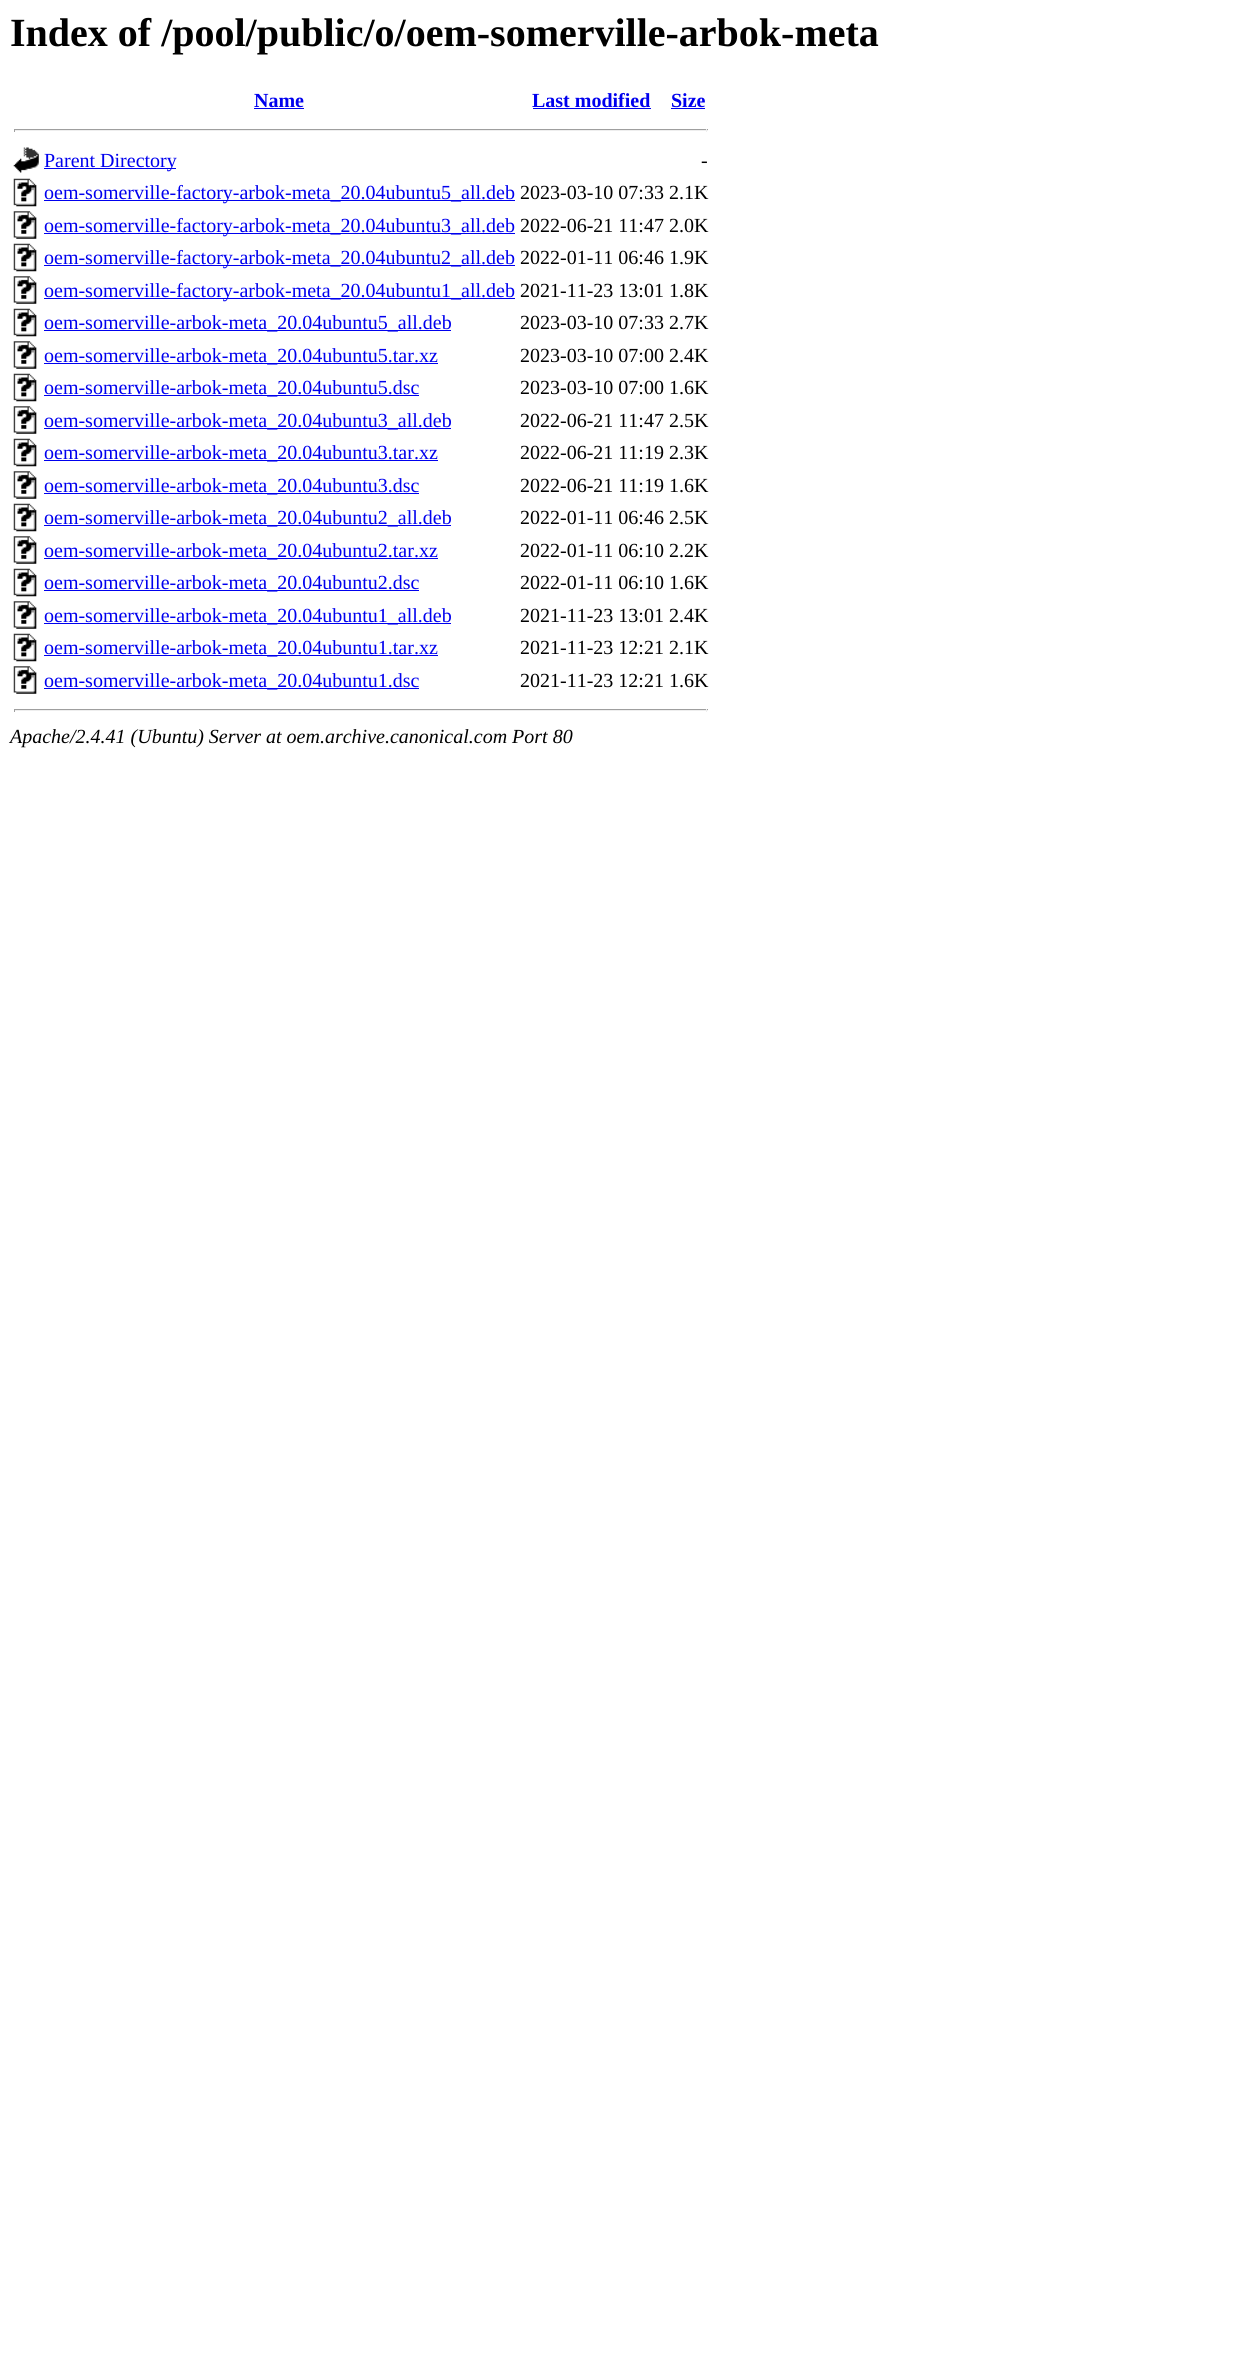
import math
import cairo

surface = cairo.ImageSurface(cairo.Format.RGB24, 1258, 2356)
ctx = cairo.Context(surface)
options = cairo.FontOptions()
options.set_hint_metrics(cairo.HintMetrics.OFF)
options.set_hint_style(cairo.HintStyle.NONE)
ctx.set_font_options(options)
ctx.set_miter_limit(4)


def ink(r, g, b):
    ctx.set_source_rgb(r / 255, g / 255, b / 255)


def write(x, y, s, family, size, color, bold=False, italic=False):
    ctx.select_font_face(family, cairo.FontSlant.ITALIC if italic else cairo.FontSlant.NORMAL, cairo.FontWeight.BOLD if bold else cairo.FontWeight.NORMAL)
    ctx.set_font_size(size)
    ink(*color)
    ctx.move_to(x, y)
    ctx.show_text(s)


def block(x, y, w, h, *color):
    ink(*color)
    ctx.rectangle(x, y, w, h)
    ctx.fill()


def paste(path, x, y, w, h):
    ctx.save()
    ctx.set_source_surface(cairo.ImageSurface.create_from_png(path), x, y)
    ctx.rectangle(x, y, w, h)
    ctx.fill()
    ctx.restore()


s1 = dict(family="Liberation Serif", size=40, color=(0, 0, 0), bold=True)
s2 = dict(family="Liberation Serif", size=20, color=(0, 0, 238), bold=True)
s3 = dict(family="Liberation Serif", size=20, color=(0, 0, 238))
s4 = dict(family="Liberation Serif", size=20, color=(0, 0, 0))
s5 = dict(family="Liberation Serif", size=20, color=(0, 0, 0), italic=True)

ink(255, 255, 255)
ctx.paint()
write(10, 46, "Index of /pool/public/o/oem-somerville-arbok-meta", **s1)
write(254, 107, "Name", **s2)
block(254, 108, 50, 1, 0, 0, 238)
write(532, 107, "Last modified", **s2)
block(533, 108, 118, 1, 0, 0, 238)
write(671, 107, "Size", **s2)
block(671, 108, 34, 1, 0, 0, 238)
block(14, 129, 694, 1, 159, 159, 159)
block(706, 129, 1, 3, 238, 238, 238)
block(14, 130, 694, 1, 238, 238, 238)
block(14, 129, 1, 3, 159, 159, 159)
paste("pic1.png", 13, 147, 26, 26)
block(44, 168, 132, 1, 0, 0, 238)
write(44, 167, "Parent Directory", **s3)
write(701, 167, "-", **s4)
paste("pic2.png", 13, 178, 24, 29)
block(44, 200, 471, 1, 0, 0, 238)
write(44, 199, "oem-somerville-factory-arbok-meta_20.04ubuntu5_all.deb", **s3)
write(520, 199, "2023-03-10 07:33 2.1K", **s4)
paste("pic3.png", 13, 211, 24, 28)
block(44, 233, 471, 1, 0, 0, 238)
write(44, 232, "oem-somerville-factory-arbok-meta_20.04ubuntu3_all.deb", **s3)
write(520, 232, "2022-06-21 11:47 2.0K", **s4)
paste("pic2.png", 13, 243, 24, 29)
block(44, 265, 471, 1, 0, 0, 238)
write(44, 264, "oem-somerville-factory-arbok-meta_20.04ubuntu2_all.deb", **s3)
write(520, 264, "2022-01-11 06:46 1.9K", **s4)
paste("pic4.png", 13, 276, 24, 28)
block(44, 298, 471, 1, 0, 0, 238)
write(44, 297, "oem-somerville-factory-arbok-meta_20.04ubuntu1_all.deb", **s3)
write(520, 297, "2021-11-23 13:01 1.8K", **s4)
paste("pic2.png", 13, 308, 24, 29)
block(44, 330, 407, 1, 0, 0, 238)
write(44, 329, "oem-somerville-arbok-meta_20.04ubuntu5_all.deb", **s3)
write(520, 329, "2023-03-10 07:33 2.7K", **s4)
paste("pic3.png", 13, 341, 24, 28)
block(44, 363, 394, 1, 0, 0, 238)
write(44, 362, "oem-somerville-arbok-meta_20.04ubuntu5.tar.xz", **s3)
write(520, 362, "2023-03-10 07:00 2.4K", **s4)
paste("pic2.png", 13, 373, 24, 29)
block(44, 395, 375, 1, 0, 0, 238)
write(44, 394, "oem-somerville-arbok-meta_20.04ubuntu5.dsc", **s3)
write(520, 394, "2023-03-10 07:00 1.6K", **s4)
paste("pic3.png", 13, 406, 24, 28)
block(44, 428, 407, 1, 0, 0, 238)
write(44, 427, "oem-somerville-arbok-meta_20.04ubuntu3_all.deb", **s3)
write(520, 427, "2022-06-21 11:47 2.5K", **s4)
paste("pic2.png", 13, 438, 24, 29)
block(44, 460, 394, 1, 0, 0, 238)
write(44, 459, "oem-somerville-arbok-meta_20.04ubuntu3.tar.xz", **s3)
write(520, 459, "2022-06-21 11:19 2.3K", **s4)
paste("pic3.png", 13, 471, 24, 28)
block(44, 493, 375, 1, 0, 0, 238)
write(44, 492, "oem-somerville-arbok-meta_20.04ubuntu3.dsc", **s3)
write(520, 492, "2022-06-21 11:19 1.6K", **s4)
paste("pic2.png", 13, 503, 24, 29)
block(44, 525, 407, 1, 0, 0, 238)
write(44, 524, "oem-somerville-arbok-meta_20.04ubuntu2_all.deb", **s3)
write(520, 524, "2022-01-11 06:46 2.5K", **s4)
paste("pic3.png", 13, 536, 24, 28)
block(44, 558, 394, 1, 0, 0, 238)
write(44, 557, "oem-somerville-arbok-meta_20.04ubuntu2.tar.xz", **s3)
write(520, 557, "2022-01-11 06:10 2.2K", **s4)
paste("pic2.png", 13, 568, 24, 29)
block(44, 590, 375, 1, 0, 0, 238)
write(44, 589, "oem-somerville-arbok-meta_20.04ubuntu2.dsc", **s3)
write(520, 589, "2022-01-11 06:10 1.6K", **s4)
paste("pic3.png", 13, 601, 24, 28)
block(44, 623, 407, 1, 0, 0, 238)
write(44, 622, "oem-somerville-arbok-meta_20.04ubuntu1_all.deb", **s3)
write(520, 622, "2021-11-23 13:01 2.4K", **s4)
paste("pic2.png", 13, 633, 24, 29)
block(44, 655, 394, 1, 0, 0, 238)
write(44, 654, "oem-somerville-arbok-meta_20.04ubuntu1.tar.xz", **s3)
write(520, 654, "2021-11-23 12:21 2.1K", **s4)
paste("pic3.png", 13, 666, 24, 28)
block(44, 688, 375, 1, 0, 0, 238)
write(44, 687, "oem-somerville-arbok-meta_20.04ubuntu1.dsc", **s3)
write(520, 687, "2021-11-23 12:21 1.6K", **s4)
block(14, 709, 694, 1, 159, 159, 159)
block(706, 709, 1, 3, 238, 238, 238)
block(14, 710, 694, 1, 238, 238, 238)
block(14, 709, 1, 3, 159, 159, 159)
write(10, 743, "Apache/2.4.41 (Ubuntu) Server at oem.archive.canonical.com Port 80", **s5)
surface.write_to_png("screenshot.png")
